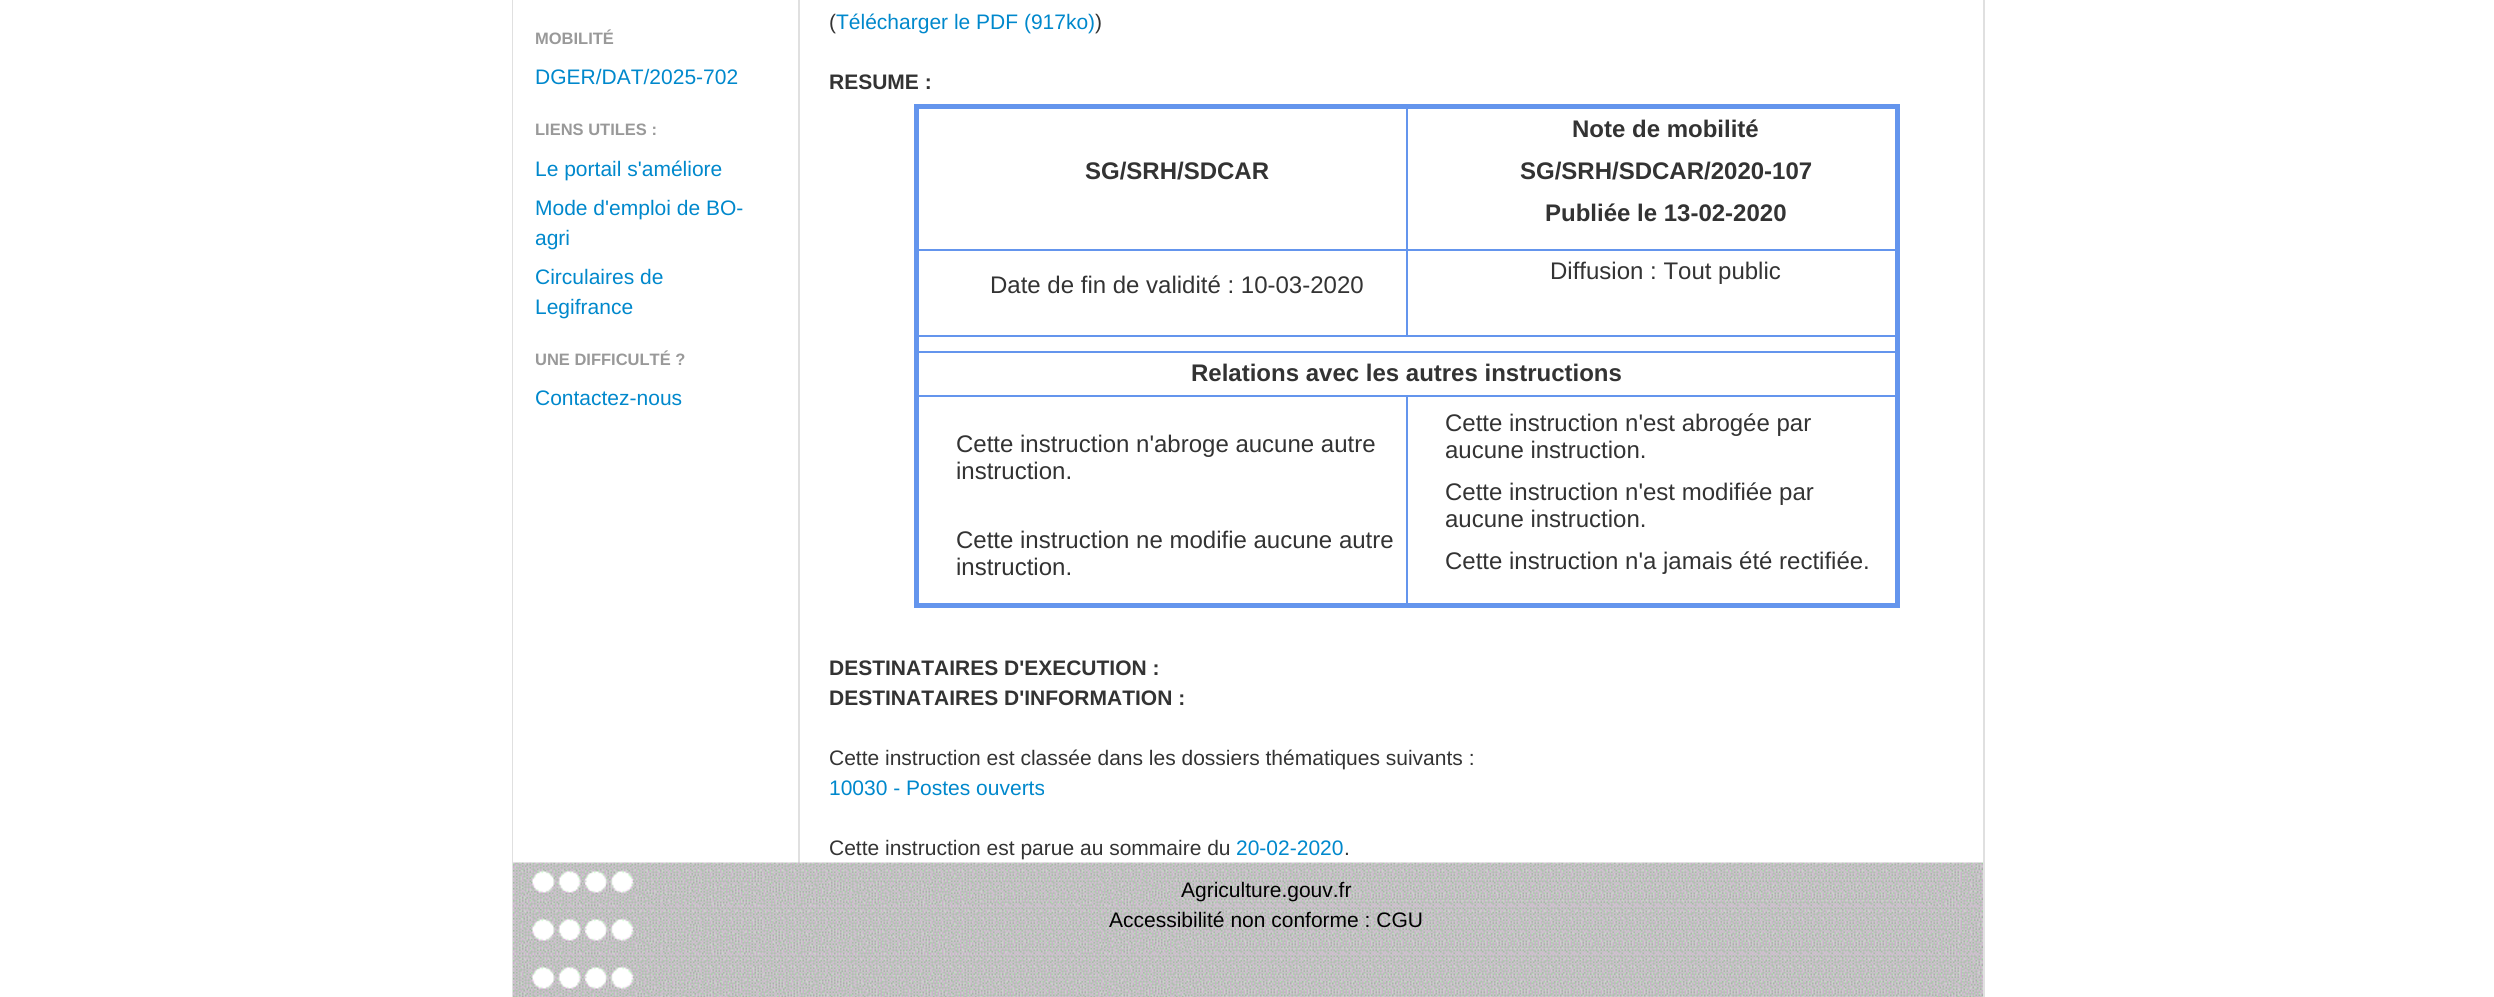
import math
import cairo

surface = cairo.ImageSurface(cairo.Format.RGB24, 2494, 997)
ctx = cairo.Context(surface)
options = cairo.FontOptions()
options.set_hint_metrics(cairo.HintMetrics.OFF)
options.set_hint_style(cairo.HintStyle.NONE)
ctx.set_font_options(options)
ctx.set_miter_limit(4)


def ink(r, g, b):
    ctx.set_source_rgb(r / 255, g / 255, b / 255)


def write(x, y, s, family, size, color, bold=False, italic=False):
    ctx.select_font_face(family, cairo.FontSlant.ITALIC if italic else cairo.FontSlant.NORMAL, cairo.FontWeight.BOLD if bold else cairo.FontWeight.NORMAL)
    ctx.set_font_size(size)
    ink(*color)
    ctx.move_to(x, y)
    ctx.show_text(s)


def block(x, y, w, h, *color):
    ink(*color)
    ctx.rectangle(x, y, w, h)
    ctx.fill()


def paste(path, x, y, w, h):
    ctx.save()
    ctx.set_source_surface(cairo.ImageSurface.create_from_png(path), x, y)
    ctx.rectangle(x, y, w, h)
    ctx.fill()
    ctx.restore()


s1 = dict(family="Liberation Sans", size=16.5, color=(153, 153, 153), bold=True)
s2 = dict(family="Liberation Sans", size=21, color=(0, 136, 204))
s3 = dict(family="Liberation Sans", size=21, color=(51, 51, 51))
s4 = dict(family="Liberation Sans", size=21, color=(51, 51, 51), bold=True)
s5 = dict(family="Liberation Sans", size=24, color=(51, 51, 51), bold=True)
s6 = dict(family="Liberation Sans", size=24, color=(51, 51, 51))
s7 = dict(family="Liberation Sans", size=21, color=(0, 0, 0))

ink(255, 255, 255)
ctx.paint()
block(1983, 0, 2, 997, 224, 224, 224)
block(512, 0, 1, 997, 224, 224, 224)
write(535, 44, "MOBILITÉ", **s1)
write(535, 84, "DGER/DAT/2025-702", **s2)
write(535, 135, "LIENS UTILES :", **s1)
write(535, 176, "Le portail s'améliore", **s2)
write(535, 215, "Mode d'emploi de BO-", **s2)
write(535, 245, "agri", **s2)
write(535, 284, "Circulaires de", **s2)
write(535, 314, "Legifrance", **s2)
write(535, 365, "UNE DIFFICULTÉ ?", **s1)
write(535, 405, "Contactez-nous", **s2)
block(798, 0, 2, 863, 224, 224, 224)
write(829, 29, "(", **s3)
write(836, 29, "Télécharger le PDF (917ko)", **s2)
write(1095, 29, ")", **s3)
write(829, 89, "RESUME :", **s4)
block(1406, 249, 492, 2, 100, 149, 237)
block(915, 335, 983, 2, 100, 149, 237)
block(1406, 249, 2, 87, 100, 149, 237)
block(915, 249, 492, 2, 100, 149, 237)
block(1406, 105, 2, 146, 100, 149, 237)
block(914, 104, 985, 5, 100, 149, 237)
block(915, 351, 983, 2, 100, 149, 237)
block(1406, 395, 492, 2, 100, 149, 237)
block(1895, 104, 5, 504, 100, 149, 237)
block(1406, 395, 2, 211, 100, 149, 237)
block(914, 603, 985, 5, 100, 149, 237)
block(915, 395, 492, 2, 100, 149, 237)
block(914, 104, 5, 504, 100, 149, 237)
write(1085, 179, "SG/SRH/SDCAR", **s5)
write(1572, 137, "Note de mobilité", **s5)
write(1520, 179, "SG/SRH/SDCAR/2020-107", **s5)
write(1545, 221, "Publiée le 13-02-2020", **s5)
write(990, 293, "Date de fin de validité : 10-03-2020", **s6)
write(1550, 279, "Diffusion : Tout public", **s6)
write(1191, 381, "Relations avec les autres instructions", **s5)
write(956, 452, "Cette instruction n'abroge aucune autre", **s6)
write(956, 479, "instruction.", **s6)
write(956, 548, "Cette instruction ne modifie aucune autre", **s6)
write(956, 575, "instruction.", **s6)
write(1445, 431, "Cette instruction n'est abrogée par", **s6)
write(1445, 458, "aucune instruction.", **s6)
write(1445, 500, "Cette instruction n'est modifiée par", **s6)
write(1445, 527, "aucune instruction.", **s6)
write(1445, 569, "Cette instruction n'a jamais été rectifiée.", **s6)
write(829, 675, "DESTINATAIRES D'EXECUTION :", **s4)
write(829, 705, "DESTINATAIRES D'INFORMATION :", **s4)
write(829, 765, "Cette instruction est classée dans les dossiers thématiques suivants :", **s3)
write(829, 795, "10030 - Postes ouverts", **s2)
write(829, 855, "Cette instruction est parue au sommaire du", **s3)
write(1236, 855, "20-02-2020", **s2)
write(1344, 855, ".", **s3)
paste("pic1.png", 513, 862, 1470, 135)
write(1181, 897, "Agriculture.gouv.fr", **s7)
write(1109, 927, "Accessibilité non conforme : CGU", **s7)
surface.write_to_png("screenshot.png")
